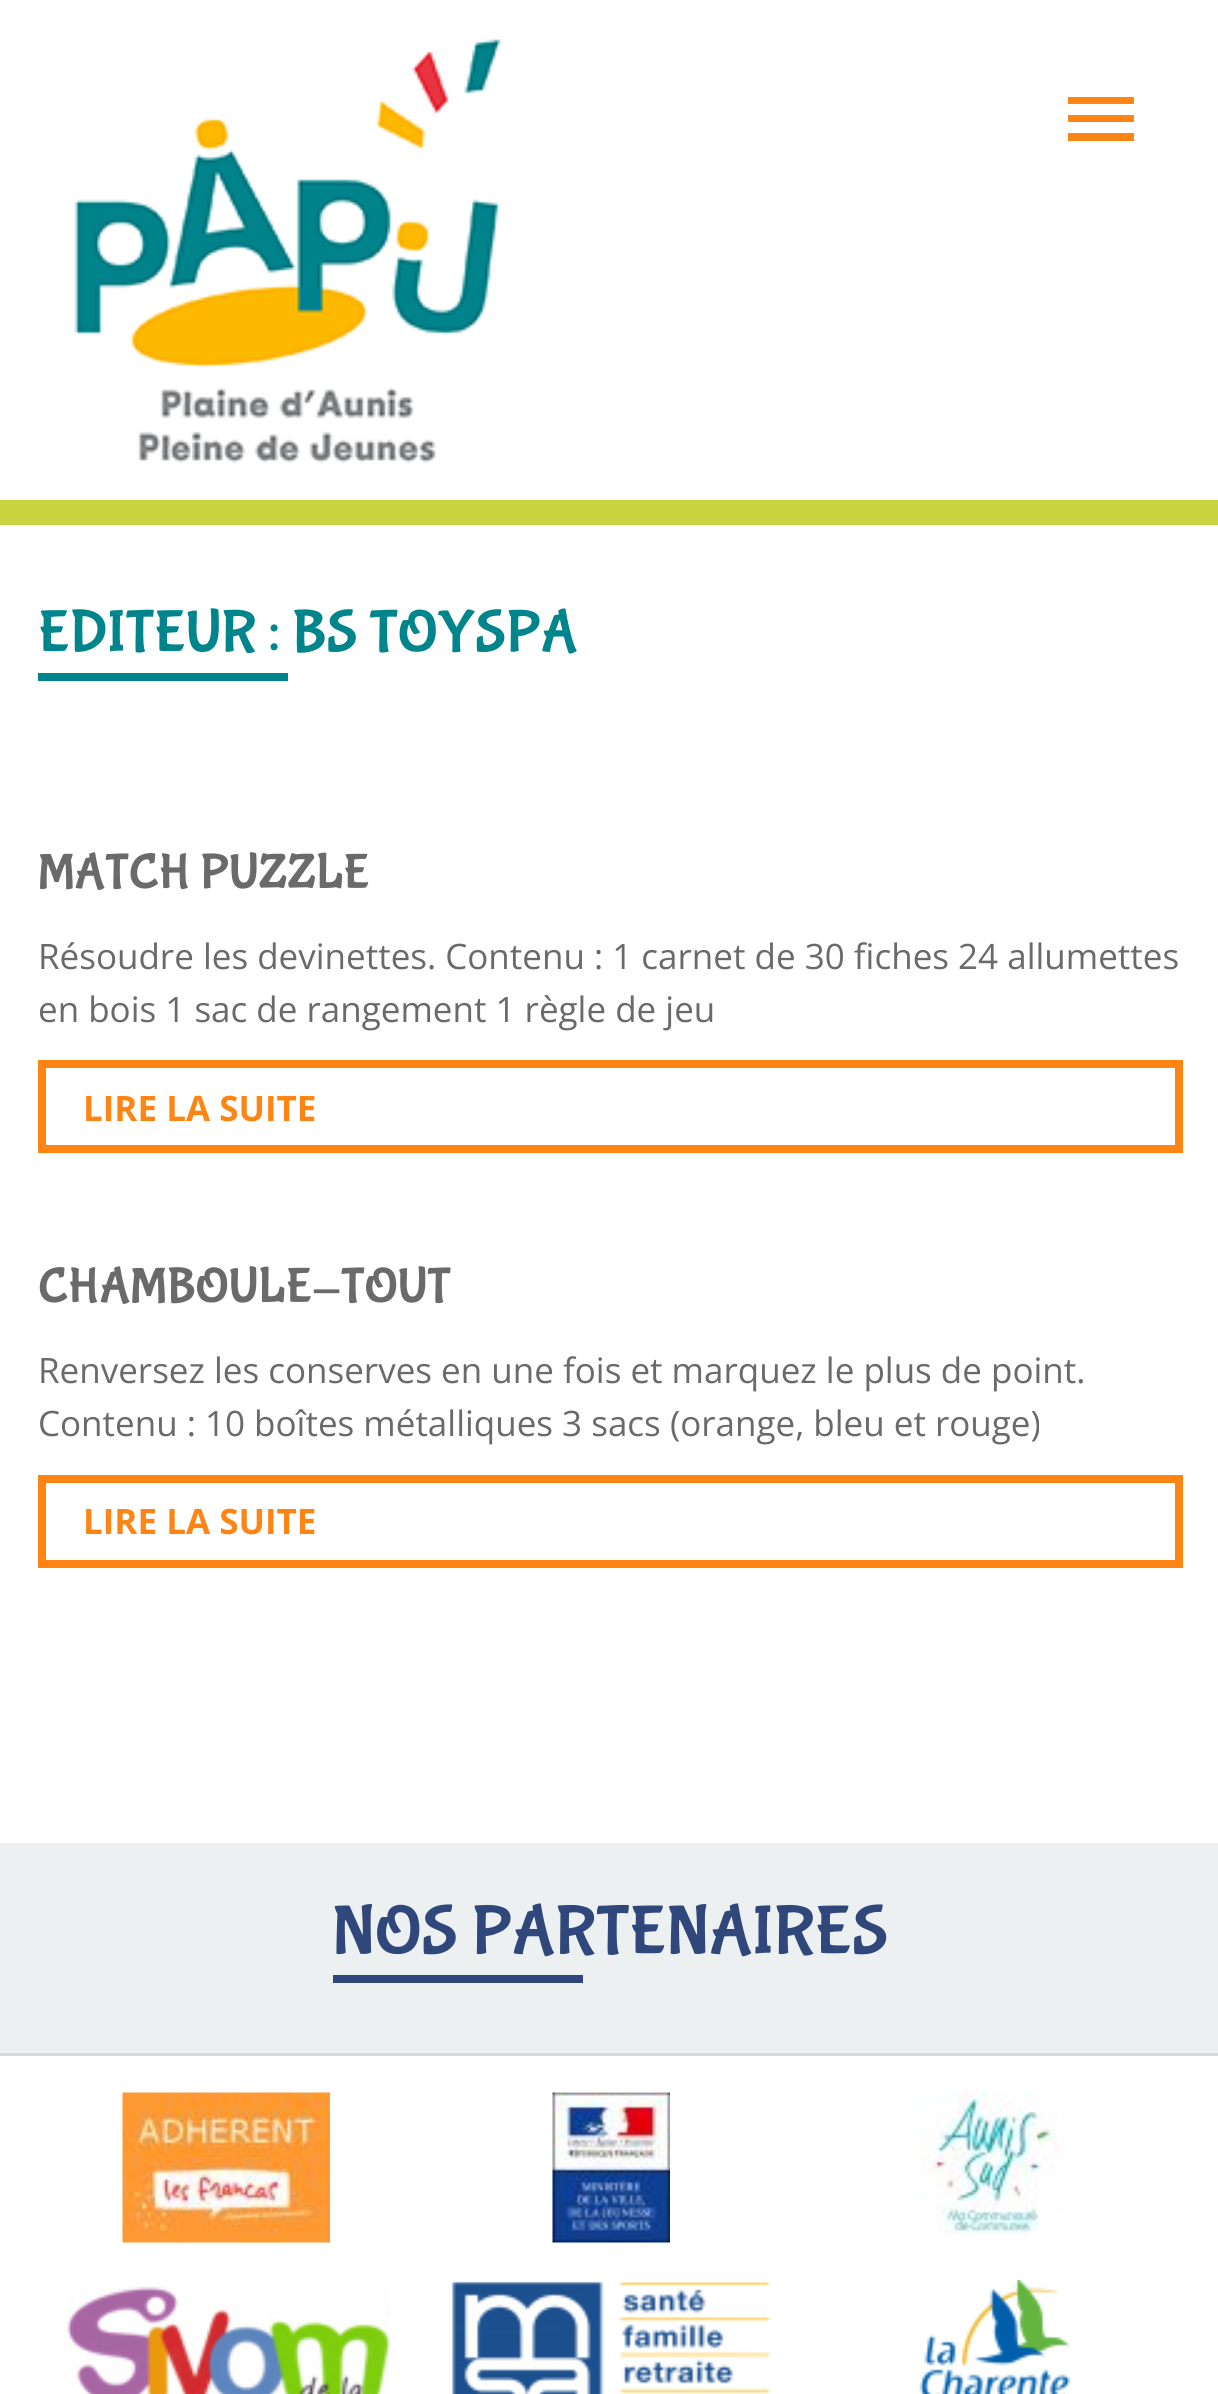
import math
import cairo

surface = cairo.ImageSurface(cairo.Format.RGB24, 1218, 2394)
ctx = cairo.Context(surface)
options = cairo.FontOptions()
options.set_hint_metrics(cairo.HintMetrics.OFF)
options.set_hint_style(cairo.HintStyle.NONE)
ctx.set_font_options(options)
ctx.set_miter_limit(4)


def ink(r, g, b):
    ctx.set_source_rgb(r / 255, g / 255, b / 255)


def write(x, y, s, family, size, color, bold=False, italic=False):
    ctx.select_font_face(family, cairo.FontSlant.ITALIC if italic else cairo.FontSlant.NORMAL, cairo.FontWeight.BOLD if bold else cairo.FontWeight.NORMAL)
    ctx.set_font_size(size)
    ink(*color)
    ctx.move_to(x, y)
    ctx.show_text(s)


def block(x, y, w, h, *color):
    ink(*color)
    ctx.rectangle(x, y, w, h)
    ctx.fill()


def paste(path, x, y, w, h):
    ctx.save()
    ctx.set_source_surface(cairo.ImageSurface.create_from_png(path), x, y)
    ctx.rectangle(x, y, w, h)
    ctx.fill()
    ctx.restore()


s1 = dict(family="Bubblegum Sans", size=60, color=(0, 133, 140))
s2 = dict(family="Bubblegum Sans", size=50, color=(106, 106, 106))
s3 = dict(family="Open Sans", size=35, color=(106, 106, 106))
s4 = dict(family="Open Sans", size=35, color=(254, 133, 20), bold=True)
s5 = dict(family="Bubblegum Sans", size=70, color=(47, 71, 122))

ink(236, 240, 241)
ctx.paint()
block(0, 0, 1218, 500, 255, 255, 255)
block(0, 500, 1218, 25, 202, 212, 64)
paste("pic1.png", 74, 39, 427, 425)
ink(254, 133, 20)
ctx.new_path()
ctx.move_to(1068, 97)
ctx.line_to(1134, 97)
ctx.line_to(1134, 104)
ctx.line_to(1068, 104)
ctx.close_path()
ctx.move_to(1068, 122)
ctx.line_to(1068, 115)
ctx.line_to(1134, 115)
ctx.line_to(1134, 122)
ctx.close_path()
ctx.move_to(1068, 141)
ctx.line_to(1068, 133)
ctx.line_to(1134, 133)
ctx.line_to(1134, 141)
ctx.close_path()
ctx.fill()
block(0, 525, 1218, 1318, 255, 255, 255)
write(38, 650, "EDITEUR : BS TOYSPA", **s1)
block(38, 673, 250, 8, 0, 133, 140)
write(38, 887, "MATCH PUZZLE", **s2)
write(38, 969, "Résoudre les devinettes. Contenu : 1 carnet de 30 fiches 24 allumettes", **s3)
write(38, 1022, "en bois 1 sac de rangement 1 règle de jeu", **s3)
ctx.rectangle(42, 1064, 1137, 85)
ink(254, 133, 20)
ctx.set_line_width(8)
ctx.stroke()
write(83, 1121, "LIRE LA SUITE", **s4)
write(38, 1301, "CHAMBOULE-TOUT", **s2)
write(38, 1383, "Renversez les conserves en une fois et marquez le plus de point.", **s3)
write(38, 1436, "Contenu : 10 boîtes métalliques 3 sacs (orange, bleu et rouge)", **s3)
ctx.rectangle(42, 1479, 1137, 85)
ink(254, 133, 20)
ctx.stroke()
write(83, 1534, "LIRE LA SUITE", **s4)
write(332, 1952, "NOS PARTENAIRES", **s5)
block(333, 1975, 250, 8, 47, 71, 122)
block(0, 2056, 1218, 338, 255, 255, 255)
block(0, 2053, 1218, 3, 217, 217, 217)
paste("pic2.png", 122, 2092, 208, 151)
paste("pic3.png", 552, 2092, 118, 151)
paste("pic4.png", 917, 2092, 149, 144)
paste("pic5.png", 67, 2286, 323, 108)
paste("pic6.png", 451, 2281, 320, 113)
paste("pic7.png", 919, 2280, 151, 114)
surface.write_to_png("screenshot.png")
